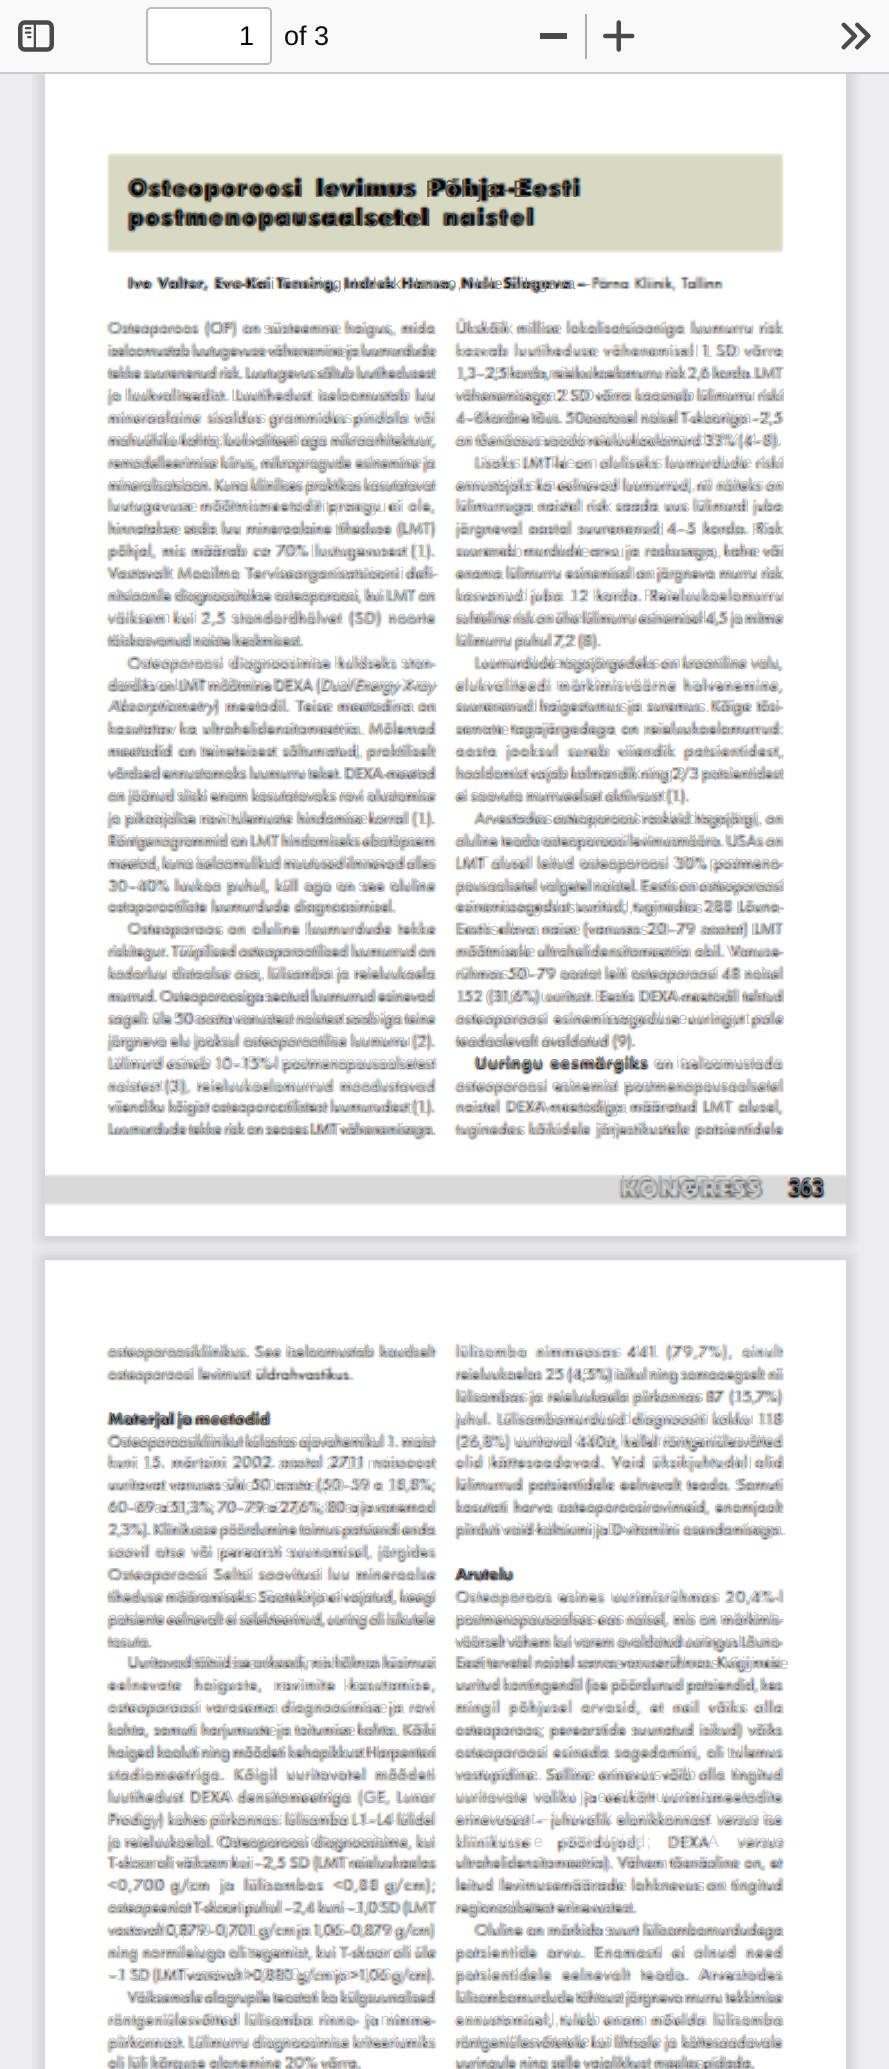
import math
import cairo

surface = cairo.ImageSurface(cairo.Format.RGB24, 889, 2069)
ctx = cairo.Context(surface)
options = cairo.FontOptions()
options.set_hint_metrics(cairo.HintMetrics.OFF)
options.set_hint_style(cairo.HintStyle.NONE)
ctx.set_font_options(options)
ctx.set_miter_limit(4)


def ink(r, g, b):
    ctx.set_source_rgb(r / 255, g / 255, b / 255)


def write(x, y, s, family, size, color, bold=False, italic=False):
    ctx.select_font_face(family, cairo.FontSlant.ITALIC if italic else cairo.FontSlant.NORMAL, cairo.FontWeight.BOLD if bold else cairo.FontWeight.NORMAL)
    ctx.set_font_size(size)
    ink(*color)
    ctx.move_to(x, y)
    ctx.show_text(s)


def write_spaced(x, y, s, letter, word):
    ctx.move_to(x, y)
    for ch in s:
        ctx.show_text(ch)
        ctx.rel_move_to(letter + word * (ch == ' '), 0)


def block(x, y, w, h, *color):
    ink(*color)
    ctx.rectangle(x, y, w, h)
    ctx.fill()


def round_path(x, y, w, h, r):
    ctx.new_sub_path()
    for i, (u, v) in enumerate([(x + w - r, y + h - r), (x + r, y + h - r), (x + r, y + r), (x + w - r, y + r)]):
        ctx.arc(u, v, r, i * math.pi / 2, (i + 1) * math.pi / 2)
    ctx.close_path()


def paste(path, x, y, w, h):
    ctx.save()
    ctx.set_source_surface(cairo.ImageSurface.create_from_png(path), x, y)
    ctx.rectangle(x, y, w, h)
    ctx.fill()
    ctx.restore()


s1 = dict(family="Liberation Sans", size=27, color=(6, 6, 6))
s2 = dict(family="Liberation Sans", size=27, color=(12, 12, 13))
s3 = dict(family="Liberation Sans", size=17.1, color=(191, 191, 192))

ink(237, 237, 240)
ctx.paint()
block(0, 72, 889, 2, 204, 204, 204)
block(0, 0, 889, 72, 249, 249, 250)
paste("pic1.png", 18, 20, 36, 32)
ink(255, 255, 255)
round_path(149, 9, 121, 54, 2)
ctx.fill()
round_path(147, 8, 124, 56, 4)
ink(187, 187, 188)
ctx.stroke()
write(239, 45, "1", **s1)
write(284, 45, "of 3", **s2)
block(540, 33, 27, 6, 75, 75, 75)
block(585, 14, 2, 45, 174, 174, 175)
paste("pic2.png", 603, 20, 32, 32)
paste("pic3.png", 841, 22, 30, 28)
paste("pic4.png", 32, 74, 827, 1175)
paste("pic5.png", 45, 74, 801, 1162)
ctx.set_font_size(24)
ink(86, 86, 77)
write_spaced(128, 197, "Osteoporoosi levimus Põhja-Eesti", 2.95, -1)
ink(74, 77, 73)
write_spaced(128, 226, "postmenopausaalsetel naistel", 3.3, -1)
ctx.set_font_size(16.25)
ink(152, 151, 151)
write_spaced(128, 289, "Ivo Valter, Eve-Kai Tensing, Indrek Hanso, Nele Silagava –", 0.65, 0)
ctx.set_font_size(17.1)
ink(191, 191, 192)
write_spaced(108, 334, "Osteoporoos (OP) on süsteemne haigus, mida", -0.6, 0)
write_spaced(456, 334, "Ükskõik millise lokalisatsiooniga luumurru risk", -0.4, 0)
ink(185, 187, 189)
write_spaced(108, 357, "iseloomustab luutugevuse vähenemine ja luumurdude", -1.65, 0)
ink(198, 199, 200)
write_spaced(456, 357, "kasvab luutiheduse vähenemisel 1 SD võrra", -0.15, 0)
ink(185, 187, 189)
write_spaced(108, 379, "tekke suurenenud risk. Luutugevus sõltub luutihedusest", -1.75, 0)
ink(191, 191, 192)
write_spaced(456, 379, "1,3–2,5 korda, reieluukaelamurru risk 2,6 korda. LMT", -1.45, 0)
write_spaced(108, 401, "ja luukvaliteedist. Luutihedust iseloomustab luu", -0.6, 0)
write_spaced(456, 401, "vähenemisega 2 SD võrra kaasneb lülimurru riski", -0.95, 0)
ink(198, 199, 200)
write_spaced(108, 423, "mineraalaine sisaldus grammides pindala või", -0.3, 0)
ink(191, 191, 192)
write_spaced(456, 423, "4–6kordne tõus. 50aastasel naisel T-skooriga –2,5", -1.15, 0)
write_spaced(108, 445, "mahuühiku kohta; luukvaliteeti aga mikroarhitektuur,", -1.28, 0)
ink(198, 199, 200)
write_spaced(456, 445, "on tõenäosus saada reieluukaelamurd 33% (4–8).", -1.15, 0)
ink(191, 191, 192)
write_spaced(108, 468, "remodelleerimise kiirus, mikropragude esinemine ja", -1.25, 0)
ink(198, 199, 200)
write_spaced(475, 468, "Lisaks LMT-le on oluliseks luumurdude riski", -0.5, 0)
ink(191, 191, 192)
write_spaced(108, 490, "mineralisatsioon. Kuna kliinilises praktikas kasutatavat", -1.5, 0)
ink(198, 199, 200)
write_spaced(456, 490, "ennustajaks ka eelnevad luumurrud, nii näiteks on", -1.05, 0)
write_spaced(108, 512, "luutugevuse mõõtmismeetodit praegu ei ole,", -0.2, 0)
write_spaced(456, 512, "lülimurruga naistel risk saada uus lülimurd juba", -0.6, 0)
ink(191, 191, 192)
write_spaced(108, 535, "hinnatakse seda luu mineraalaine tiheduse (LMT)", -1, 0)
write_spaced(456, 535, "järgneval aastal suurenenud 4–5 korda. Risk", -0.25, 0)
write_spaced(108, 557, "põhjal, mis määrab", -0.25, 0)
ink(198, 193, 190)
write_spaced(252, 557, "ca", -0.6, 0)
ink(198, 199, 200)
write_spaced(274, 557, "70% luutugevusest (1).", -0.6, 0)
ink(191, 191, 192)
write_spaced(456, 557, "suureneb murdude arvu ja raskusega, kahe või", -0.65, 0)
write_spaced(108, 579, "Vastavalt Maailma Terviseorganisatsiooni defi-", -0.5, 0)
write_spaced(456, 579, "enama lülimurru esinemisel on järgneva murru risk", -1.15, 0)
write_spaced(108, 601, "nitsioonile diagnoositakse osteoporoosi, kui LMT on", -1.27, 0)
ink(198, 199, 200)
write_spaced(456, 601, "kasvanud juba 12 korda. Reieluukaelamurru", -0.15, 0)
write(108, 623, "väiksem kui 2,5 standardhälvet (SD) noorte", **s3)
write_spaced(456, 623, "suhteline risk on ühe lülimurru esinemisel 4,5 ja mitme", -1.52, 0)
ink(185, 187, 189)
write_spaced(108, 646, "täiskasvanud naiste keskmisest.", -1.6, 0)
ink(191, 191, 192)
write_spaced(456, 646, "lülimurru puhul 7,2 (8).", -1.1, 0)
ink(198, 199, 200)
write_spaced(128, 668, "Osteoporoosi diagnoosimise kuldseks stan-", -0.55, 0)
ink(191, 191, 192)
write_spaced(475, 668, "Luumurdude tagajärgedeks on krooniline valu,", -1, 0)
write_spaced(108, 690, "dardiks on LMT mõõtmine DEXA (", -1.6, 0)
ink(198, 199, 200)
write_spaced(320, 690, "Dual Energy X-ray", -1.48, 0)
write_spaced(456, 690, "elukvaliteedi märkimisväärne halvenemine,", 0.05, 0)
ink(191, 191, 192)
write_spaced(108, 712, "Absorptiometry", -0.6, 0)
write_spaced(214, 712, ") meetodil. Teise meetodina on", -0.4, 0)
write_spaced(456, 712, "suurenenud haigestumus ja suremus. Kõige tõsi-", -0.95, 0)
write_spaced(108, 735, "kasutatav ka ultrahelidensitomeetria. Mõlemad", -0.55, 0)
write_spaced(456, 735, "semate tagajärgedega on reieluukaelamurrud:", -0.5, 0)
write_spaced(108, 757, "meetodid on teineteisest sõltumatud, praktiliselt", -0.65, 0)
write_spaced(456, 757, "aasta  jooksul  sureb  viiendik  patsientidest,", -0.1, 0)
ink(185, 187, 189)
write_spaced(108, 779, "võrdsed ennustamaks luumurru teket. DEXA-meetod", -1.55, 0)
ink(191, 191, 192)
write_spaced(456, 779, "hooldamist vajab kolmandik ning 2/3 patsientidest", -1, 0)
write_spaced(108, 801, "on jäänud siiski enam kasutatavaks ravi alustamise", -1.2, 0)
write_spaced(456, 801, "ei saavuta murrueelset aktiivsust (1).", -1.2, 0)
write_spaced(108, 824, "ja pikaajalise ravi tulemuste hindamise korral (1).", -0.83, 0)
write_spaced(475, 824, "Arvestades osteoporoosi raskeid tagajärgi, on", -0.85, 0)
write_spaced(108, 846, "Röntgenogrammid on LMT hindamiseks ebatäpsem", -1.5, 0)
write_spaced(456, 846, "oluline teada osteoporoosi levimusmäära. USAs on", -1.27, 0)
write_spaced(108, 868, "meetod, kuna iseloomulikud muutused ilmnevad alles", -1.55, 0)
write_spaced(456, 868, "LMT alusel leitud osteoporoosi 30% postmeno-", -0.65, 0)
write_spaced(108, 891, "30–40% luukao puhul, küll aga on see oluline", -0.35, 0)
write_spaced(456, 891, "pausaalsetel valgetel naistel. Eestis on osteoporoosi", -1.3, 0)
write_spaced(108, 913, "ostoporootiliste luumurdude diagnoosimisel.", -1.05, 0)
write_spaced(456, 913, "esinemissagedust uuritud, tuginedes 288 Lõuna-", -0.9, 0)
write_spaced(128, 935, "Osteoporoos on oluline luumurdude tekke", -0.2, 0)
write_spaced(456, 935, "Eestis elava naise (vanuses 20–79 aastat) LMT", -0.75, 0)
write_spaced(108, 957, "riskitegur. Tüüpilised osteoporootilised luumurrud on", -1.3, 0)
write_spaced(456, 957, "mõõtmisele ultrahelidensitomeetria abil. Vanuse-", -0.85, 0)
write_spaced(108, 979, "kodarluu distaalse osa, lülisamba ja reieluukaela", -0.8, 0)
write_spaced(456, 979, "rühmas 50–79 aastat leiti osteoporoosi 48 naisel", -0.83, 0)
ink(185, 187, 189)
write_spaced(108, 1002, "murrud. Osteoporoosiga seotud luumurrud esinevad", -1.45, 0)
ink(191, 191, 192)
write_spaced(456, 1002, "152 (31,6%) uuritust. Eestis DEXA-meetodil tehtud", -1.15, 0)
write_spaced(108, 1024, "sageli: üle 50 aasta vanustest naistest saab iga teine", -1.35, 0)
write_spaced(456, 1024, "osteoporoosi esinemissageduse uuringut pole", -0.45, 0)
write_spaced(108, 1046, "järgneva elu jooksul osteoporootilise luumurru (2).", -1, 0)
ink(185, 187, 189)
write_spaced(456, 1046, "teadaolevalt avaldatud (9).", -0.8, 0)
ink(198, 199, 200)
write_spaced(108, 1068, "Lülimurd esineb 10–15%-l postmenopausaalsetest", -1.2, 0)
ink(139, 136, 141)
write_spaced(475, 1068, "Uuringu eesmärgiks", 1.25, 0)
ink(198, 199, 200)
write_spaced(653, 1068, "on iseloomustada", -0.25, 0)
write_spaced(108, 1091, "naistest (3), reieluukaelamurrud moodustavad", -0.45, 0)
ink(191, 191, 192)
write_spaced(456, 1091, "osteoporoosi esinemist postmenopausaalsetel", -0.55, 0)
write_spaced(108, 1113, "viiendiku kõigist osteoporootilistest luumurudest (1).", -1.2, 0)
write_spaced(456, 1113, "naistel DEXA-meetodiga määratud LMT alusel,", -0.7, 0)
ink(185, 187, 189)
write_spaced(108, 1135, "Luumurdude tekke risk on seoses LMT vähenemisega.", -1.8, 0)
ink(191, 191, 192)
write_spaced(456, 1135, "tuginedes kõikidele järjestikustele patsientidele", -0.55, 0)
ctx.set_font_size(24)
ink(185, 187, 189)
write_spaced(620, 1192, "KONGRESS", 0.75, 0)
ctx.select_font_face("DejaVu Sans Mono")
ink(104, 109, 115)
write_spaced(788, 1195, "363", -3, 0)
block(45, 1260, 801, 1, 255, 255, 255)
paste("pic6.png", 32, 1248, 827, 821)
paste("pic7.png", 45, 1260, 801, 809)
ctx.select_font_face("Liberation Sans")
ctx.set_font_size(17.1)
ink(191, 191, 192)
write_spaced(108, 1357, "osteoporoosikliinikus. See iseloomustab kaudselt", -0.95, 0)
ink(200, 204, 207)
write_spaced(455, 1357, "lülisamba  nimmeosas  441  (79,7%),  ainult", -0.1, 0)
ink(191, 191, 192)
write_spaced(108, 1380, "osteoporoosi levimust", -1.05, 0)
write_spaced(455, 1380, "reieluukaelas 25 (4,5%) isikul ning samaaegselt nii", -1.1, 0)
write_spaced(455, 1402, "lülisambas ja reieluukaela piirkonnas 87 (15,7%)", -0.83, 0)
ink(129, 124, 123)
write_spaced(108, 1424, "Materjal ja meetodid", 0.4, 0)
ink(198, 199, 200)
write_spaced(455, 1424, "juhul. Lülisambamurdusid diagnoositi kokku 118", -0.75, 0)
ink(191, 191, 192)
write_spaced(108, 1446, "Osteoporoosikliinik", -1.05, 0)
write_spaced(231, 1446, "ut külastas ajavahemikul 1. maist", -1.45, 0)
ink(198, 199, 200)
write_spaced(455, 1446, "(26,8%) uuritaval 440st, kellel röntgeniülesvõtted", -0.83, 0)
write_spaced(108, 1469, "kuni 15. märtsini 2002. aastal 2711 naissoost", -0.3, 0)
write_spaced(455, 1469, "olid kättesaadavad. Vaid üksikjuhtudel olid", 0.2, 0)
write_spaced(108, 1491, "uuritavat vanuses üle 50 aasta (50–59 a 18,8%;", -0.75, 0)
ink(191, 191, 192)
write_spaced(455, 1491, "lülimurrud patsientidele eelnevalt teada. Samuti", -0.65, 0)
ink(198, 193, 190)
write_spaced(108, 1513, "60–69 a 51,3%; 70–79 a 27,6%; 80 a ja vanemad", -1.1, 0)
ink(191, 191, 192)
write_spaced(455, 1513, "kasutati harva osteoporoosiravimeid, enamjaolt", -0.65, 0)
write_spaced(108, 1535, "2,3%). Kliinikusse pöördumine toimus patsiendi enda", -1.45, 0)
write_spaced(455, 1535, "piirduti vaid kaltsiumi ja D-vitamiini", -1.05, 0)
write_spaced(683, 1535, "asendamisega.", -1.05, 0)
ink(198, 199, 200)
write_spaced(108, 1557, "soovil otse või perearsti suunamisel, järgides", -0.25, 0)
ink(191, 191, 192)
write_spaced(108, 1580, "Osteoporoosi Seltsi soovitusi luu mineraalse", -0.15, 0)
ink(127, 112, 108)
write_spaced(455, 1580, "Arutelu", 0.5, 0)
ink(191, 191, 192)
write_spaced(108, 1602, "tiheduse määramiseks. Saatekirja ei vajatud, keegi", -1.15, 0)
ink(198, 199, 200)
write_spaced(455, 1602, "Osteoporoos esines uurimisrühmas 20,4%-l", -0.1, 0)
ink(191, 191, 192)
write_spaced(108, 1624, "patsiente eelnevalt ei selekteerinud, uuring oli isikutele", -1.48, 0)
write_spaced(455, 1624, "postmenopausaalses eas naisel, mis on märkimis-", -1.15, 0)
write_spaced(108, 1647, "tasuta.", -1.1, 0)
write_spaced(455, 1647, "väärselt vähem kui varem avaldatud uuringus Lõuna-", -1.5, 0)
write_spaced(127, 1669, "Uuritavad täitsid ise ankeedi, mis hõlmas küsimusi", -1.45, 0)
write_spaced(455, 1669, "Eesti tervetel naistel", -1.65, 0)
write_spaced(580, 1669, "samas vanuserühmas. Kuigi meie", -1.65, 0)
ink(198, 199, 200)
write_spaced(108, 1691, "eelnevate  haiguste,  ravimite  kasutamise,", 0.1, 0)
ink(191, 191, 192)
write_spaced(455, 1691, "uuritud kontingendil (ise pöördunud patsiendid, kes", -1.15, 0)
ink(198, 199, 200)
write_spaced(108, 1713, "osteoporoosi varasema diagnoosimise ja ravi", -0.35, 0)
write_spaced(455, 1713, "mingil  põhjusel  arvasid,  et  neil  võiks  olla", -0.05, 0)
ink(191, 191, 192)
write_spaced(108, 1736, "kohta, samuti harjumuste ja toitumise kohta. Kõiki", -0.95, 0)
write_spaced(455, 1736, "osteoporoos; perearstide suunatud isikud) võiks", -0.75, 0)
ink(185, 187, 189)
write_spaced(108, 1758, "haiged kaaluti ning mõõdeti kehapikkust Harpenteri", -1.2, 0)
ink(191, 191, 192)
write_spaced(455, 1758, "osteoporoosi esineda sagedamini, oli tulemus", -0.4, 0)
write(108, 1780, "stadiomeetriga.  Kõigil  uuritavatel  mõõdeti", **s3)
write_spaced(455, 1780, "vastupidine. Selline erinevus võib olla tingitud", -0.35, 0)
write_spaced(108, 1802, "luutihedust DEXA densitomeetriga", -0.55, 0)
ink(198, 199, 200)
write_spaced(358, 1802, "(GE, Lunar", -0.55, 0)
write_spaced(455, 1802, "uuritavate valiku ja eeskätt uurimismeetodite", -0.2, 0)
write_spaced(108, 1824, "Prodigy) kahes piirkonnas: lülisamba L1–L4 lülidel", -1.05, 0)
write_spaced(455, 1824, "erinevusest – juhuvalik elanikkonnast", -0.7, 0)
write_spaced(716, 1824, "versus", -1.48, 0)
write_spaced(762, 1824, "ise", -0.5, 0)
ink(191, 191, 192)
write_spaced(108, 1847, "ja reieluukaelal. Osteoporoosi diagnoosisime, kui", -0.9, 0)
ink(207, 207, 209)
write_spaced(455, 1847, "kliinikusse   pöördujad;   DEXA", 1, 0)
ink(198, 199, 200)
write_spaced(737, 1847, "versus", -0.65, 0)
ink(191, 191, 192)
write_spaced(108, 1869, "T-skoor oli väiksem kui –2,5 SD (LMT reieluukaelas", -1.25, 0)
write_spaced(455, 1869, "ultrahelidensitomeetria). Vähem tõenäoline on, et", -0.95, 0)
write_spaced(108, 1891, "<0,700  g/cm  ja  lülisambas  <0,88  g/cm);", 0.15, 0)
write_spaced(455, 1891, "leitud levimusemäärade lahknevus on tingitud", -0.4, 0)
write_spaced(108, 1913, "osteopeeniat T-skoori puhul –2,4 kuni –1,0 SD (LMT", -1.37, 0)
write_spaced(455, 1913, "regionaalsetest erinevustest.", -1.27, 0)
ink(198, 199, 200)
write_spaced(108, 1936, "vastavalt 0,879–0,701 g/cm ja 1,06–0,879 g/cm)", -0.83, 0)
ink(191, 191, 192)
write_spaced(475, 1936, "Oluline on märkida suurt lülisambamurdudega", -0.95, 0)
write_spaced(108, 1958, "ning normileiuga oli tegemist, kui T-skoor oli üle", -0.63, 0)
write_spaced(455, 1958, "patsientide  arvu.  Enamasti  ei  olnud  need", -0.1, 0)
ink(198, 199, 200)
write_spaced(108, 1980, "–1 SD (LMT vastavalt >0,880 g/cm ja >1,06 g/cm).", -1.15, 0)
ink(191, 191, 192)
write_spaced(455, 1980, "patsientidele  eelnevalt  teada.  Arvestades", 0.05, 0)
ink(185, 187, 189)
write_spaced(127, 2003, "Väiksemale alagrupile teostati ka külgsuunalised", -1.25, 0)
ink(191, 191, 192)
write_spaced(455, 2003, "lülisambamurdude tähtsust järgneva murru tekkimise", -1.45, 0)
ink(198, 199, 200)
write_spaced(108, 2025, "röntgeniülesvõtted lülisamba rinna- ja nimme-", -0.4, 0)
write_spaced(455, 2025, "ennustamisel, tuleb enam mõelda lülisamba", -0.1, 0)
write_spaced(108, 2047, "piirkonnast. Lülimurru diagnoosimise kriteeriumiks", -1.02, 0)
ink(191, 191, 192)
write_spaced(455, 2047, "röntgeniülesvõtetele kui lihtsale ja kättesaadavale", -0.95, 0)
write_spaced(108, 2069, "oli lüli kõrguse alanemine 20% võrra.", -0.7, 0)
ink(185, 187, 189)
write_spaced(455, 2069, "uuringule ning selle vajalikkust meeles pidada.", -1.1, 0)
surface.write_to_png("screenshot.png")
